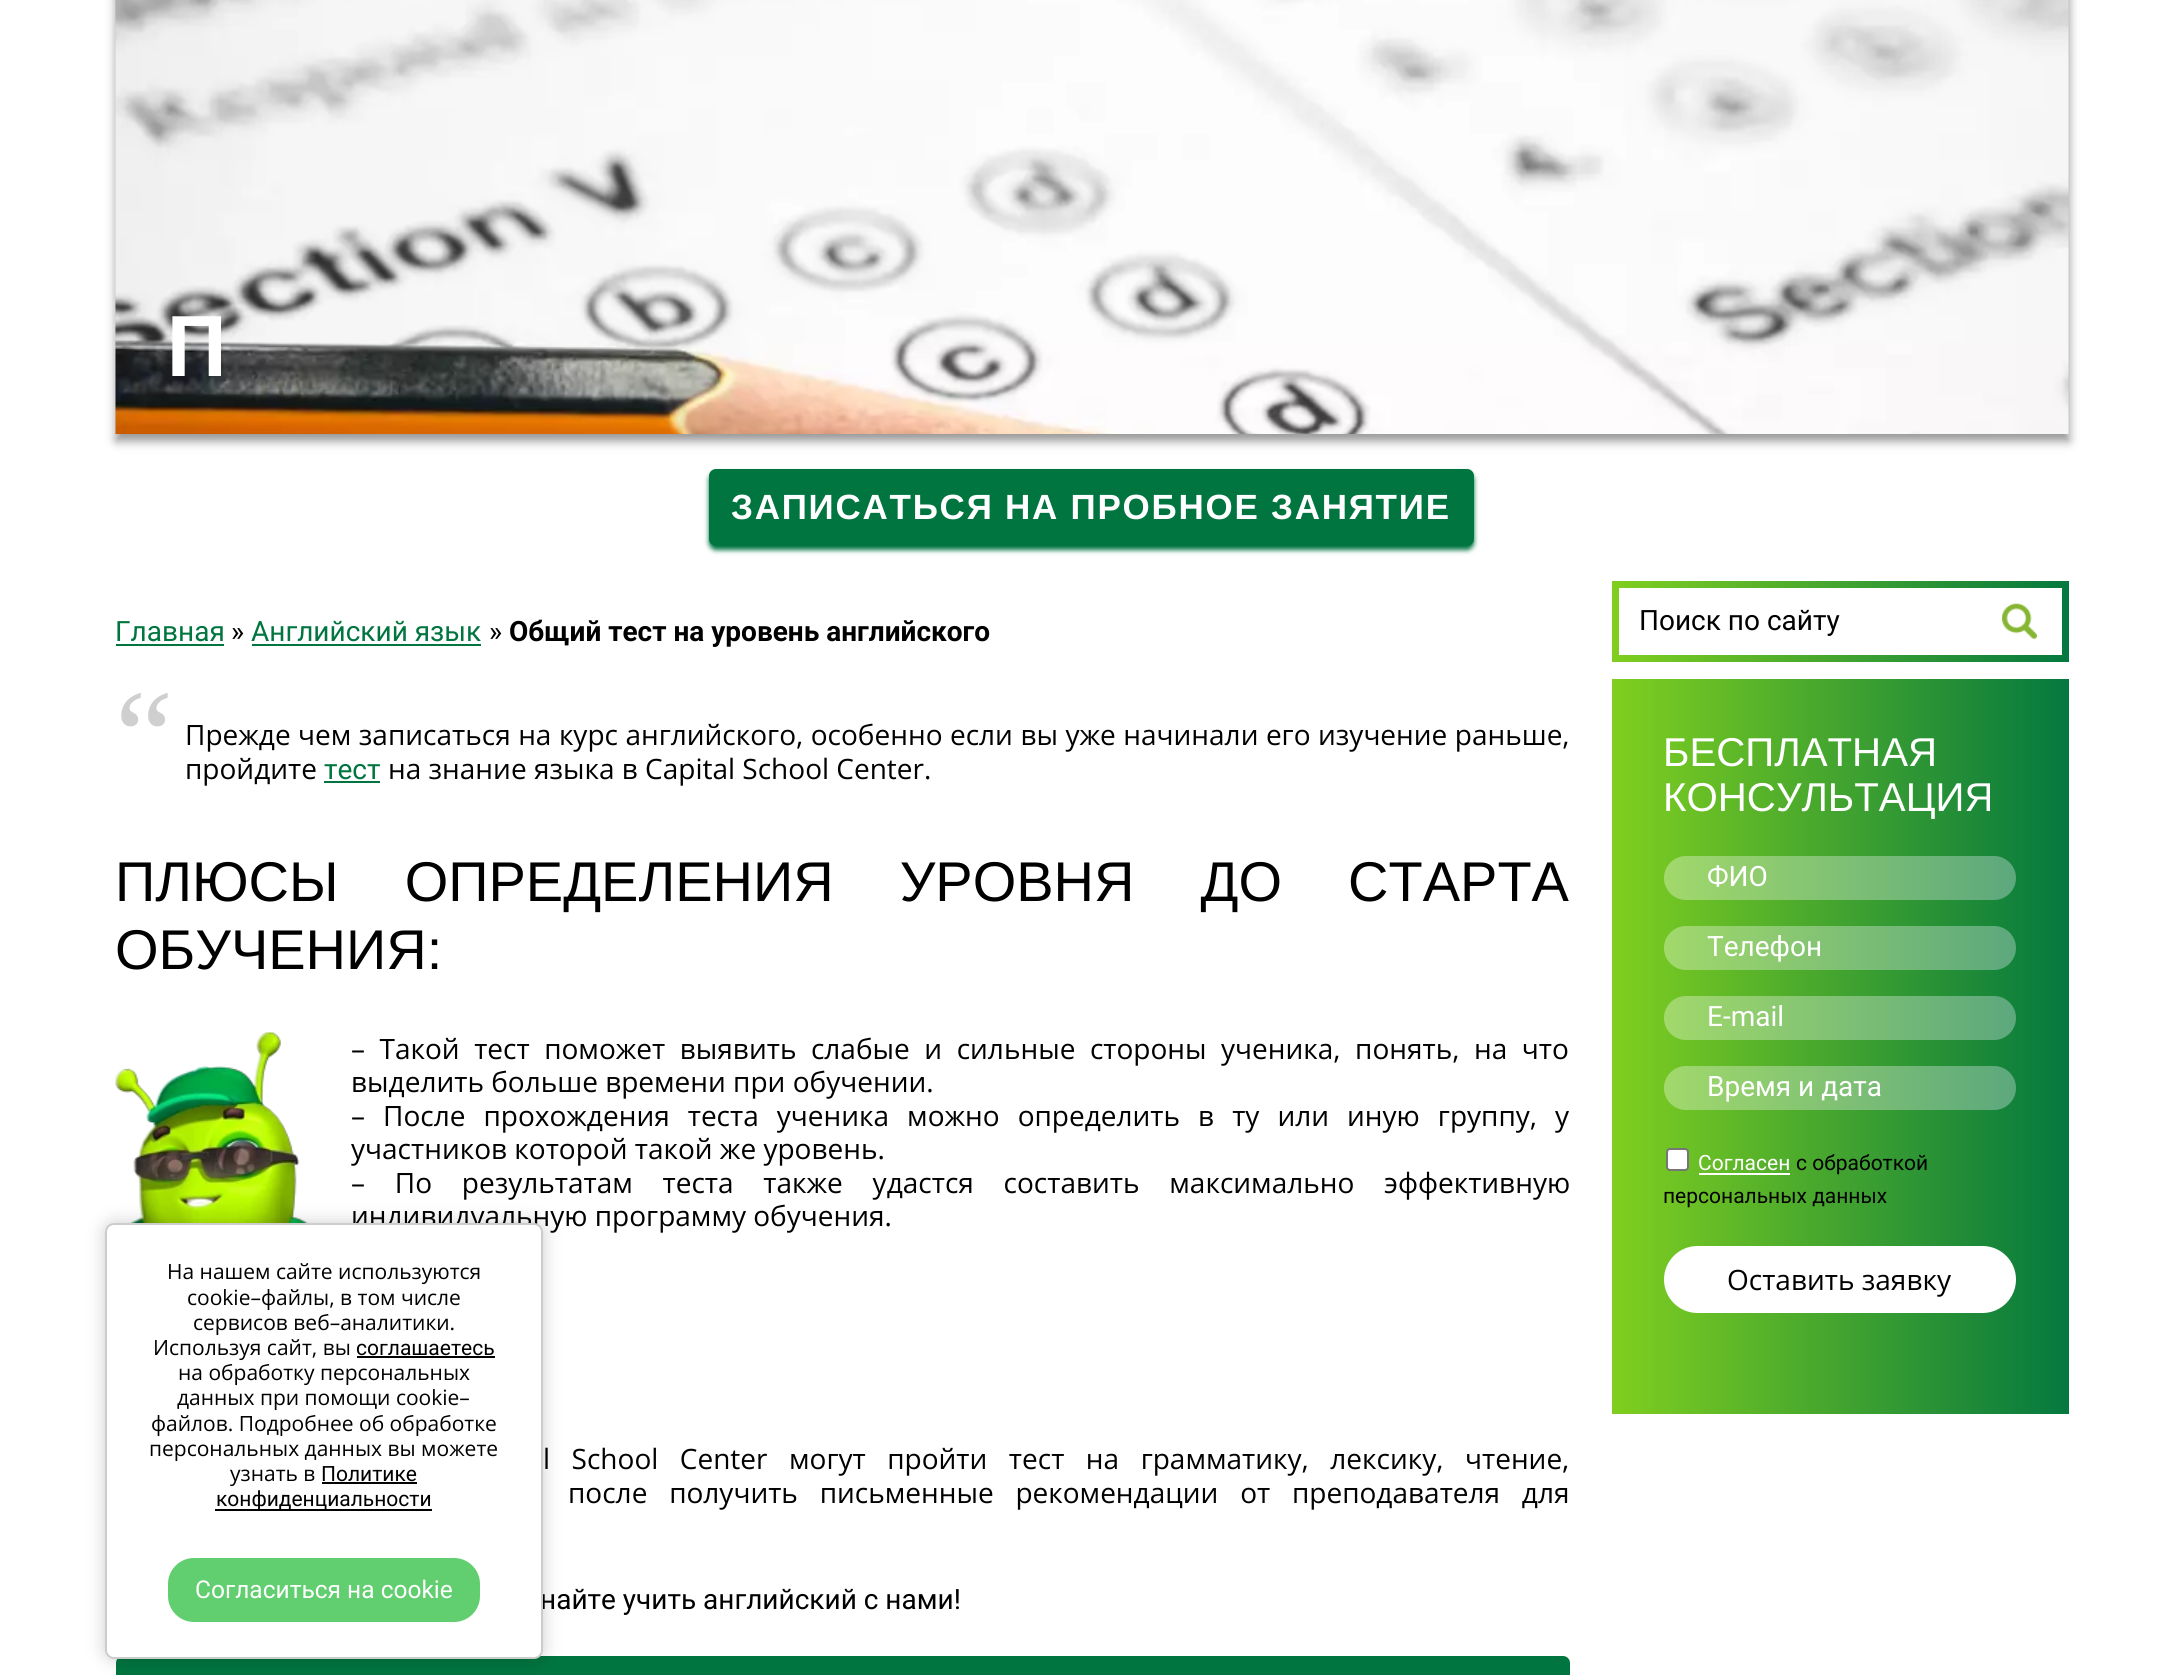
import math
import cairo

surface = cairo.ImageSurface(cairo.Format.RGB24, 2181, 1675)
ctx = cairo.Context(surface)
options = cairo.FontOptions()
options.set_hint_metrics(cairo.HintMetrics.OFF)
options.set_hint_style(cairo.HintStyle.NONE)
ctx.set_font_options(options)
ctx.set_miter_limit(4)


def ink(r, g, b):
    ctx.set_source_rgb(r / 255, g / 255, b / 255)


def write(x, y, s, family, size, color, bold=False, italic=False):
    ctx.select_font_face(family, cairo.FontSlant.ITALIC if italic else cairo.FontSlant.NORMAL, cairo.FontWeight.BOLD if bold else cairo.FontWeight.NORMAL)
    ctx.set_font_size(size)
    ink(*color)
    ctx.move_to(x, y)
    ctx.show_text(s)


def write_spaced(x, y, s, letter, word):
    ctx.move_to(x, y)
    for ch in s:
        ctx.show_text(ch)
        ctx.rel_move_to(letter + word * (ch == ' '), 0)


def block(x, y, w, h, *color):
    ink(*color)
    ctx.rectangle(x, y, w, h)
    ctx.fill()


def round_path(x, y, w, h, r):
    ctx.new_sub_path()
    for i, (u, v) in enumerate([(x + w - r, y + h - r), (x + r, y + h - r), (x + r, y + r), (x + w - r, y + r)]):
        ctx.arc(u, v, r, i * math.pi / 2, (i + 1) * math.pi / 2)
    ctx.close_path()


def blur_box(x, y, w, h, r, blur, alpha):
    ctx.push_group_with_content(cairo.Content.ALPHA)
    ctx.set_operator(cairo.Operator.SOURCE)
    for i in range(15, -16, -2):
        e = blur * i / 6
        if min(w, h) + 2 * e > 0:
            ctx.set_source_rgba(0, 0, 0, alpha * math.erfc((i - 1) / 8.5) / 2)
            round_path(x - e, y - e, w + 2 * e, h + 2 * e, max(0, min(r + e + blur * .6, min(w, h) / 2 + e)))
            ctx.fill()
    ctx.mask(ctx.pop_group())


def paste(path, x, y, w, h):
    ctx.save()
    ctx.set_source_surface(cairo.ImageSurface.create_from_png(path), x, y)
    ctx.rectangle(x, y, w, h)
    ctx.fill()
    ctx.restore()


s1 = dict(family="Roboto", size=84, color=(255, 255, 255), bold=True)
s2 = dict(family="Roboto", size=28, color=(0, 117, 64))
s3 = dict(family="Roboto", size=28, color=(0, 0, 0))
s4 = dict(family="Roboto", size=28, color=(0, 0, 0), bold=True)
s5 = dict(family="Liberation Serif", size=131, color=(207, 207, 207))
s6 = dict(family="Open Sans", size=28, color=(0, 0, 0))
s7 = dict(family="Liberation Sans", size=56, color=(0, 0, 0))
s8 = dict(family="Liberation Sans", size=40.25, color=(255, 255, 255))
s9 = dict(family="Roboto", size=28, color=(255, 255, 255))
s10 = dict(family="Roboto", size=21, color=(255, 255, 255))
s11 = dict(family="Roboto", size=21, color=(0, 0, 0))
s12 = dict(family="Open Sans", size=21, color=(0, 0, 0))
s13 = dict(family="Roboto", size=24.5, color=(255, 255, 255))

ink(255, 255, 255)
ctx.paint()
ink(50, 50, 50)
blur_box(116, -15, 1953, 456, 0, 5, 0.52)
paste("pic1.png", 115, 0, 1954, 434)
write(167, 376, "П", **s1)
ink(0, 116, 64)
blur_box(709, 473, 765, 77, 7, 2.5, 1)
ink(0, 117, 64)
round_path(709, 469, 765, 77, 7)
ctx.fill()
ctx.select_font_face("Liberation Sans", cairo.FontSlant.NORMAL, cairo.FontWeight.BOLD)
ctx.set_font_size(35)
ink(255, 255, 255)
write_spaced(731, 519, "ЗАПИСАТЬСЯ НА ПРОБНОЕ ЗАНЯТИЕ", 1.75, 0)
write(115, 641, "Главная", **s2)
block(116, 644, 108, 2, 0, 117, 64)
write(231, 641, "»", **s3)
write(251, 641, "Английский язык", **s2)
block(252, 644, 229, 2, 0, 117, 64)
write(489, 641, "»", **s3)
write(509, 641, "Общий тест на уровень английского", **s4)
write(115, 780, "“", **s5)
ctx.select_font_face("Open Sans")
ctx.set_font_size(28)
ink(0, 0, 0)
write_spaced(185, 745, "Прежде чем записаться на курс английского, особенно если вы уже начинали его изучение раньше,", 0, 0.2)
write(185, 779, "пройдите", **s6)
write(324, 779, "тест", **s2)
block(324, 781, 56, 2, 0, 117, 64)
write(388, 779, "на знание языка в Capital School Center.", **s6)
ctx.select_font_face("Liberation Sans")
ctx.set_font_size(56)
write_spaced(115, 901, "ПЛЮСЫ ОПРЕДЕЛЕНИЯ УРОВНЯ ДО СТАРТА", 0, 50.5)
write(115, 969, "ОБУЧЕНИЯ:", **s7)
paste("pic2.png", 115, 1032, 193, 191)
ctx.select_font_face("Open Sans")
ctx.set_font_size(28)
write_spaced(351, 1059, "– Такой тест поможет выявить слабые и сильные стороны ученика, понять, на что", 0, 7.25)
write(351, 1092, "выделить больше времени при обучении.", **s6)
write_spaced(351, 1126, "– После прохождения теста ученика можно определить в ту или иную группу, у", 0, 10.75)
write(351, 1159, "участников которой такой же уровень.", **s6)
write_spaced(351, 1193, "– По результатам теста также удастся составить максимально эффективную", 0, 22.5)
write(351, 1226, "индивидуальную программу обучения.", **s6)
write_spaced(543, 1469, "l School Center могут пройти тест на грамматику, лексику, чтение,", 0, 14.25)
write_spaced(568, 1503, "после получить письменные рекомендации от преподавателя для", 0, 14.5)
write(540, 1609, "найте учить английский с нами!", **s3)
ink(0, 117, 64)
round_path(116, 1656, 1454, 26, 7)
ctx.fill()
gradient = cairo.LinearGradient(1612, 621, 2069, 621)
gradient.add_color_stop_rgba(0, 0.502, 0.812, 0.122, 1)
gradient.add_color_stop_rgba(1, 0.016, 0.471, 0.247, 1)
ctx.set_source(gradient)
ctx.rectangle(1612, 581, 457, 81)
ctx.fill()
block(1619, 588, 443, 67, 255, 255, 255)
write(1639, 630, "Поиск по сайту", **s3)
paste("pic3.png", 2002, 603, 35, 36)
gradient = cairo.LinearGradient(1612, 1047, 2069, 1047)
gradient.add_color_stop_rgba(0, 0.502, 0.812, 0.122, 1)
gradient.add_color_stop_rgba(1, 0.016, 0.471, 0.247, 1)
ctx.set_source(gradient)
ctx.rectangle(1612, 679, 457, 735)
ctx.fill()
write(1663, 766, "БЕСПЛАТНАЯ", **s8)
write(1663, 811, "КОНСУЛЬТАЦИЯ", **s8)
gradient = cairo.LinearGradient(1664, 878, 2016, 878)
gradient.add_color_stop_rgba(0, 0.635, 0.851, 0.42, 1)
gradient.add_color_stop_rgba(1, 0.361, 0.659, 0.49, 1)
ctx.set_source(gradient)
round_path(1664, 856, 352, 44, 22)
ctx.fill()
write(1707, 886, "ФИО", **s9)
gradient = cairo.LinearGradient(1664, 948, 2016, 948)
gradient.add_color_stop_rgba(0, 0.635, 0.851, 0.42, 1)
gradient.add_color_stop_rgba(1, 0.361, 0.659, 0.49, 1)
ctx.set_source(gradient)
round_path(1664, 926, 352, 44, 22)
ctx.fill()
write(1707, 956, "Телефон", **s9)
gradient = cairo.LinearGradient(1664, 1018, 2016, 1018)
gradient.add_color_stop_rgba(0, 0.635, 0.851, 0.42, 1)
gradient.add_color_stop_rgba(1, 0.361, 0.659, 0.49, 1)
ctx.set_source(gradient)
round_path(1664, 996, 352, 44, 22)
ctx.fill()
write(1707, 1026, "E-mail", **s9)
gradient = cairo.LinearGradient(1664, 1088, 2016, 1088)
gradient.add_color_stop_rgba(0, 0.635, 0.851, 0.42, 1)
gradient.add_color_stop_rgba(1, 0.361, 0.659, 0.49, 1)
ctx.set_source(gradient)
round_path(1664, 1066, 352, 44, 22)
ctx.fill()
write(1707, 1096, "Время и дата", **s9)
round_path(1667, 1149, 21, 21, 3)
ctx.fill_preserve()
ink(118, 118, 118)
ctx.stroke()
write(1698, 1170, "Согласен", **s10)
block(1699, 1173, 91, 2, 255, 255, 255)
write(1796, 1170, "с обработкой", **s11)
write(1663, 1203, "персональных данных", **s11)
ink(255, 255, 255)
round_path(1664, 1246, 352, 67, 33.5)
ctx.fill()
write(1727, 1290, "Оставить заявку", **s6)
ink(0, 0, 0)
blur_box(105, 1223, 438, 436, 9, 9, 0.2)
ink(255, 255, 255)
round_path(106, 1224, 436, 434, 8)
ctx.fill_preserve()
ink(204, 204, 204)
ctx.stroke()
write(167, 1279, "На нашем сайте используются", **s12)
write(187, 1305, "cookie–файлы, в том числе", **s12)
write(193, 1330, "сервисов веб–аналитики.", **s12)
write(153, 1355, "Используя сайт, вы", **s12)
write(356, 1355, "соглашаетесь", **s11)
block(357, 1356, 138, 2, 0, 0, 0)
write(178, 1380, "на обработку персональных", **s12)
write(177, 1405, "данных при помощи cookie–", **s12)
write(151, 1431, "файлов. Подробнее об обработке", **s12)
write(149, 1456, "персональных данных вы можете", **s12)
write(230, 1481, "узнать в", **s12)
write(321, 1481, "Политике", **s11)
block(322, 1482, 95, 2, 0, 0, 0)
block(215, 1509, 217, 2, 0, 0, 0)
write(216, 1506, "конфиденциальности", **s11)
ink(97, 206, 112)
round_path(168, 1558, 312, 64, 26)
ctx.fill()
write(195, 1598, "Согласиться на cookie", **s13)
surface.write_to_png("screenshot.png")
